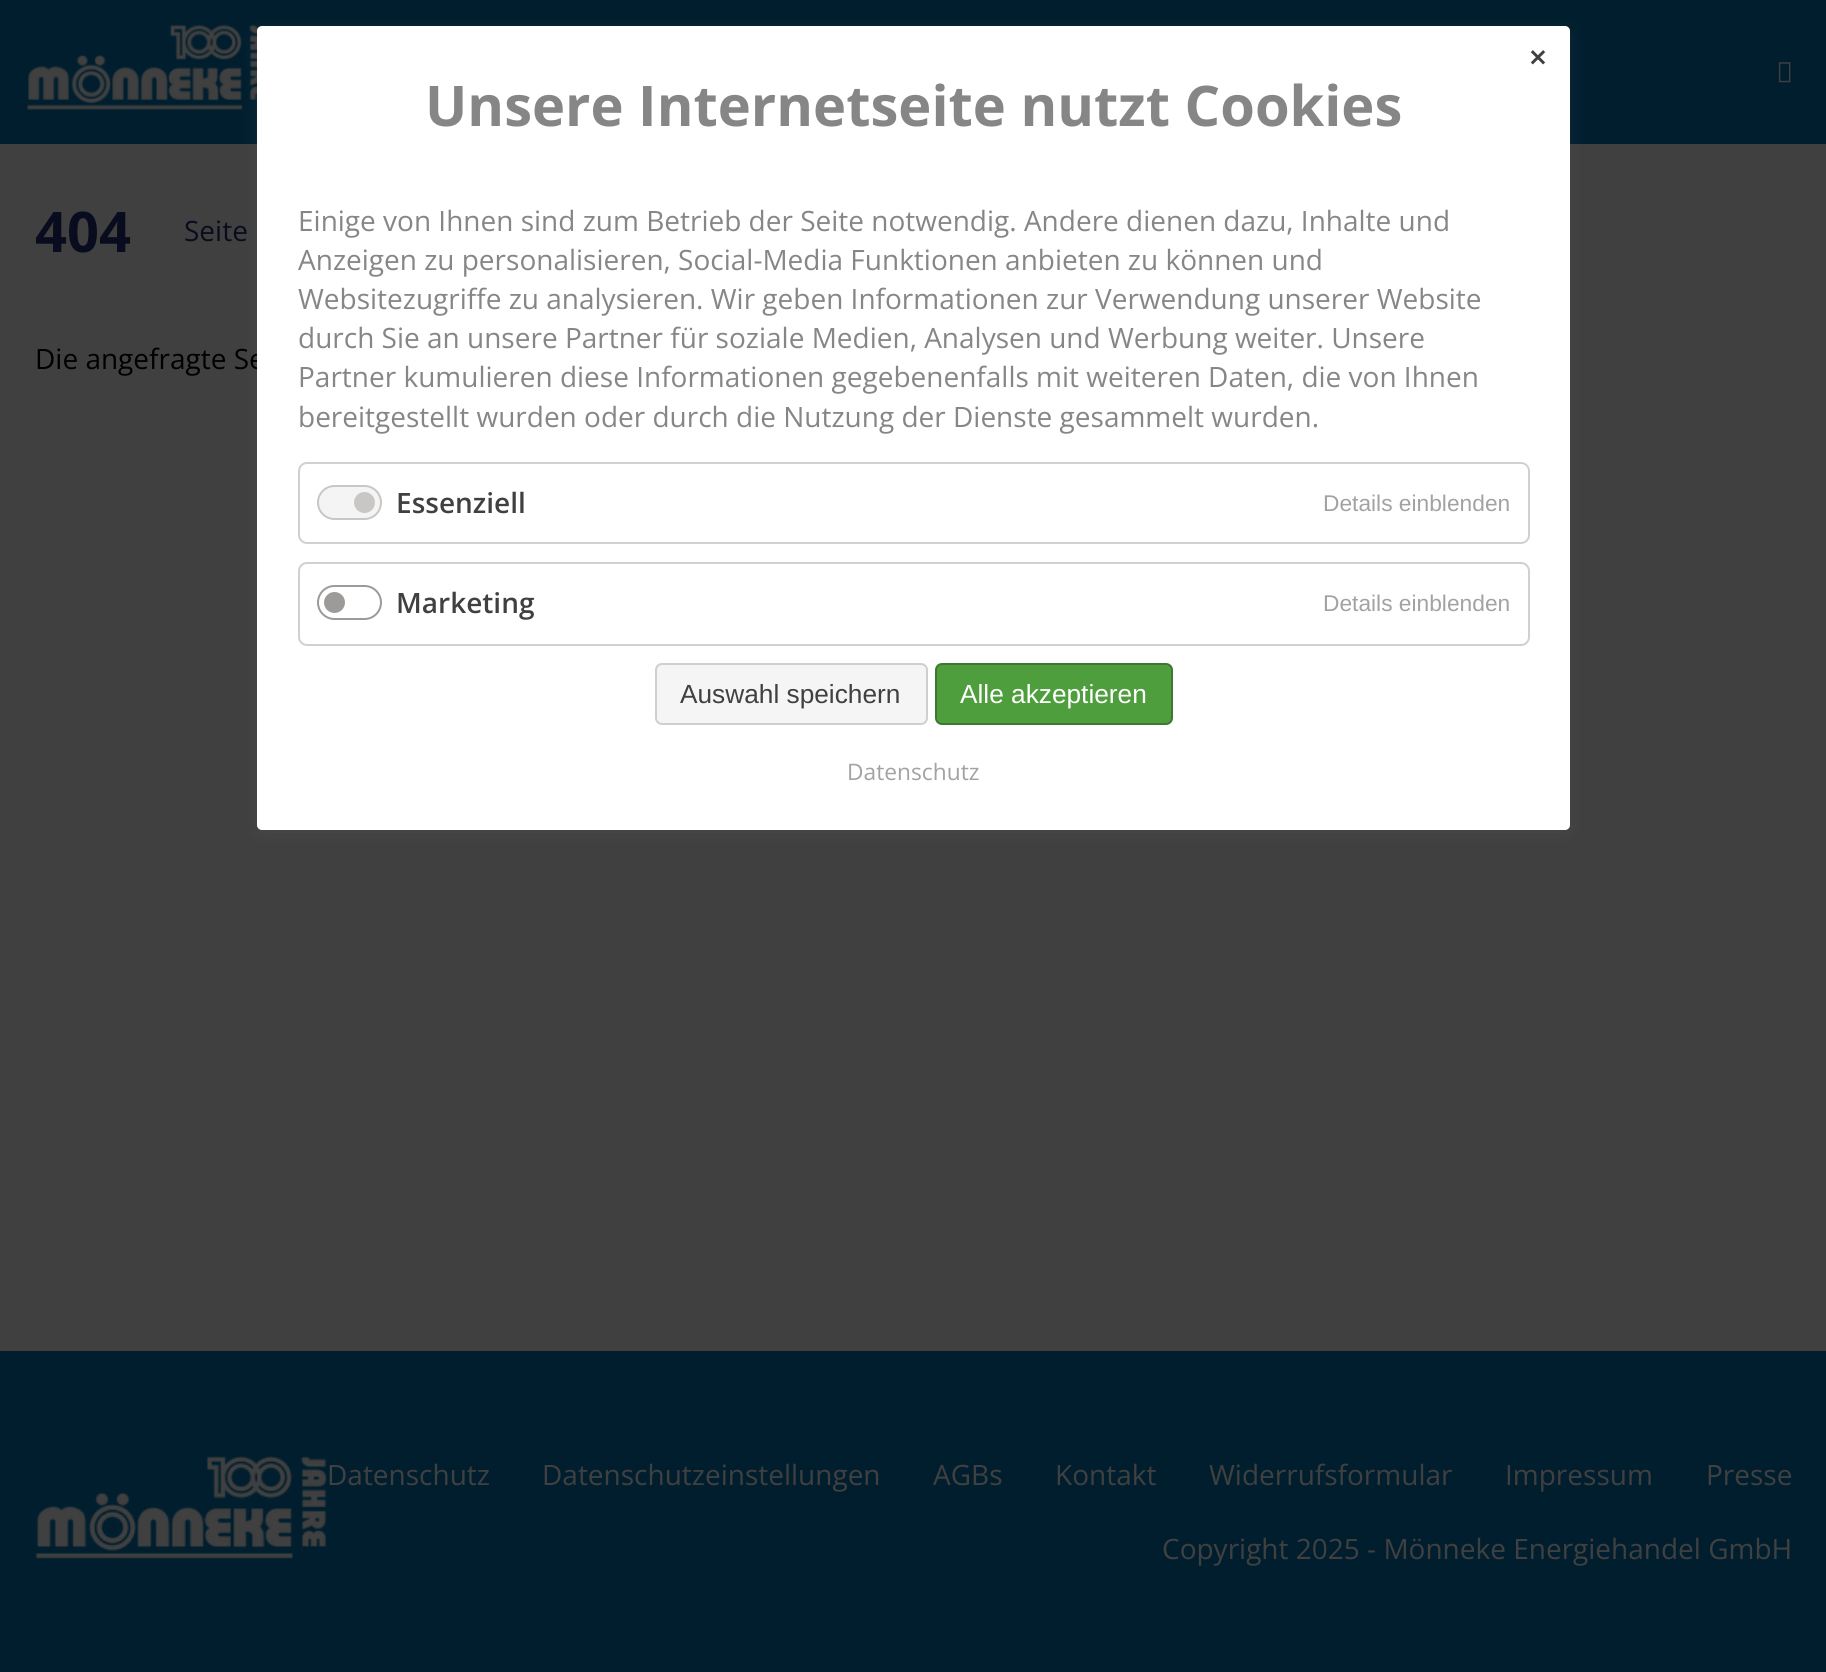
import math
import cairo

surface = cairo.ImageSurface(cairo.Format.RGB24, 1826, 1672)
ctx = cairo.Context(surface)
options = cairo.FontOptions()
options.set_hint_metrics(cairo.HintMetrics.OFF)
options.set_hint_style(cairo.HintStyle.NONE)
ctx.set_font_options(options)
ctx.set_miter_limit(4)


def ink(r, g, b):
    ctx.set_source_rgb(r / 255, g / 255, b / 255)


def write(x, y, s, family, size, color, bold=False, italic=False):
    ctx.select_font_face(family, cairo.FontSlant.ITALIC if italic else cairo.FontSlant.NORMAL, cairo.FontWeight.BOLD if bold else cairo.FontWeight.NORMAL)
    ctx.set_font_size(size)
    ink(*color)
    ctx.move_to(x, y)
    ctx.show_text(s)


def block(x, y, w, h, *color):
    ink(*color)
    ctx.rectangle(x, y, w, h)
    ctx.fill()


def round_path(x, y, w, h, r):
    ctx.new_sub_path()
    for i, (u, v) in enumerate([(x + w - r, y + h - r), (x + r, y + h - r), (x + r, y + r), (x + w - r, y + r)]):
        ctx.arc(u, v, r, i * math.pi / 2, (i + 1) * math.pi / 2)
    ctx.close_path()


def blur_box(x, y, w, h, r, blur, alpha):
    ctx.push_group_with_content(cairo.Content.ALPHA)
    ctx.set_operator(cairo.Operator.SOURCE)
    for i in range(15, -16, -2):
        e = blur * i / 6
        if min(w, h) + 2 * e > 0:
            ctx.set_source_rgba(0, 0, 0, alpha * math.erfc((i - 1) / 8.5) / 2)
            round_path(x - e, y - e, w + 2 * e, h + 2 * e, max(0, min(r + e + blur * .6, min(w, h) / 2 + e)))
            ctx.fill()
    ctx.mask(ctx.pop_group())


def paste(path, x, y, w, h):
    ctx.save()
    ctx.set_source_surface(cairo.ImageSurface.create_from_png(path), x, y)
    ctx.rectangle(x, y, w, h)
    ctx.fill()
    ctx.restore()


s1 = dict(family="Open Sans", size=28, color=(0, 0, 0))
s2 = dict(family="DejaVu Sans", size=23, color=(64, 64, 64), bold=True)
s3 = dict(family="Open Sans", size=56, color=(134, 134, 134), bold=True)
s4 = dict(family="Open Sans", size=28, color=(134, 134, 134))
s5 = dict(family="Open Sans SemiBold", size=28, color=(64, 64, 64))
s6 = dict(family="Liberation Sans", size=22.75, color=(162, 162, 162))
s7 = dict(family="Liberation Sans", size=26.25, color=(64, 64, 64))
s8 = dict(family="Liberation Sans", size=26.25, color=(255, 255, 255))
s9 = dict(family="Open Sans", size=22.75, color=(162, 162, 162))
s10 = dict(family="Open Sans", size=56, color=(9, 12, 30), bold=True)
s11 = dict(family="Open Sans", size=28, color=(9, 12, 30))
s12 = dict(family="Open Sans", size=28, color=(64, 64, 64))

ink(64, 64, 64)
ctx.paint()
block(0, 0, 1826, 144, 0, 30, 46)
paste("pic1.png", 27, 24, 235, 86)
ink(99, 99, 99)
blur_box(257, 30, 1313, 803, 5, 7, 0.2)
write(35, 369, "Die angefragte Se", **s1)
ink(255, 255, 255)
round_path(257, 26, 1313, 804, 5)
ctx.fill()
write(1528, 66, "✕", **s2)
write(425, 126, "Unsere Internetseite nutzt Cookies", **s3)
write(298, 231, "Einige von Ihnen sind zum Betrieb der Seite notwendig. Andere dienen dazu, Inhalte und", **s4)
write(298, 270, "Anzeigen zu personalisieren, Social-Media Funktionen anbieten zu können und", **s4)
write(298, 309, "Websitezugriffe zu analysieren. Wir geben Informationen zur Verwendung unserer Website", **s4)
write(298, 348, "durch Sie an unsere Partner für soziale Medien, Analysen und Werbung weiter. Unsere", **s4)
write(298, 387, "Partner kumulieren diese Informationen gegebenenfalls mit weiteren Daten, die von Ihnen", **s4)
write(298, 427, "bereitgestellt wurden oder durch die Nutzung der Dienste gesammelt wurden.", **s4)
round_path(299, 463, 1230, 80, 8)
ink(208, 208, 208)
ctx.stroke()
ink(244, 244, 244)
round_path(318, 486, 63, 33, 16.5)
ctx.fill_preserve()
ink(200, 199, 197)
ctx.stroke()
write(396, 513, "Essenziell", **s5)
ink(200, 199, 197)
ctx.new_path()
ctx.arc(364.5, 502.5, 10.5, 0, 2 * math.pi)
ctx.fill()
write(1323, 511, "Details einblenden", **s6)
round_path(299, 563, 1230, 82, 8)
ink(208, 208, 208)
ctx.stroke()
round_path(318, 586, 63, 33, 16.5)
ink(156, 155, 153)
ctx.stroke()
write(396, 613, "Marketing", **s5)
ink(156, 155, 153)
ctx.new_path()
ctx.arc(334.5, 602.5, 10.5, 0, 2 * math.pi)
ctx.fill()
write(1323, 611, "Details einblenden", **s6)
ink(245, 245, 245)
round_path(656, 664, 271, 60, 6)
ctx.fill_preserve()
ink(207, 207, 207)
ctx.stroke()
write(680, 703, "Auswahl speichern", **s7)
ink(78, 158, 62)
round_path(936, 664, 236, 60, 6)
ctx.fill_preserve()
ink(62, 120, 48)
ctx.stroke()
write(960, 703, "Alle akzeptieren", **s8)
write(847, 780, "Datenschutz", **s9)
paste("pic2.png", 1778, 62, 13, 21)
write(35, 252, "404", **s10)
write(184, 241, "Seite", **s11)
block(0, 1351, 1826, 321, 0, 30, 46)
paste("pic3.png", 35, 1456, 292, 103)
write(327, 1485, "Datenschutz", **s12)
write(542, 1485, "Datenschutzeinstellungen", **s12)
write(933, 1485, "AGBs", **s12)
write(1055, 1485, "Kontakt", **s12)
write(1209, 1485, "Widerrufsformular", **s12)
write(1505, 1485, "Impressum", **s12)
write(1706, 1485, "Presse", **s12)
write(1162, 1559, "Copyright 2025 - Mönneke Energiehandel GmbH", **s12)
surface.write_to_png("screenshot.png")
